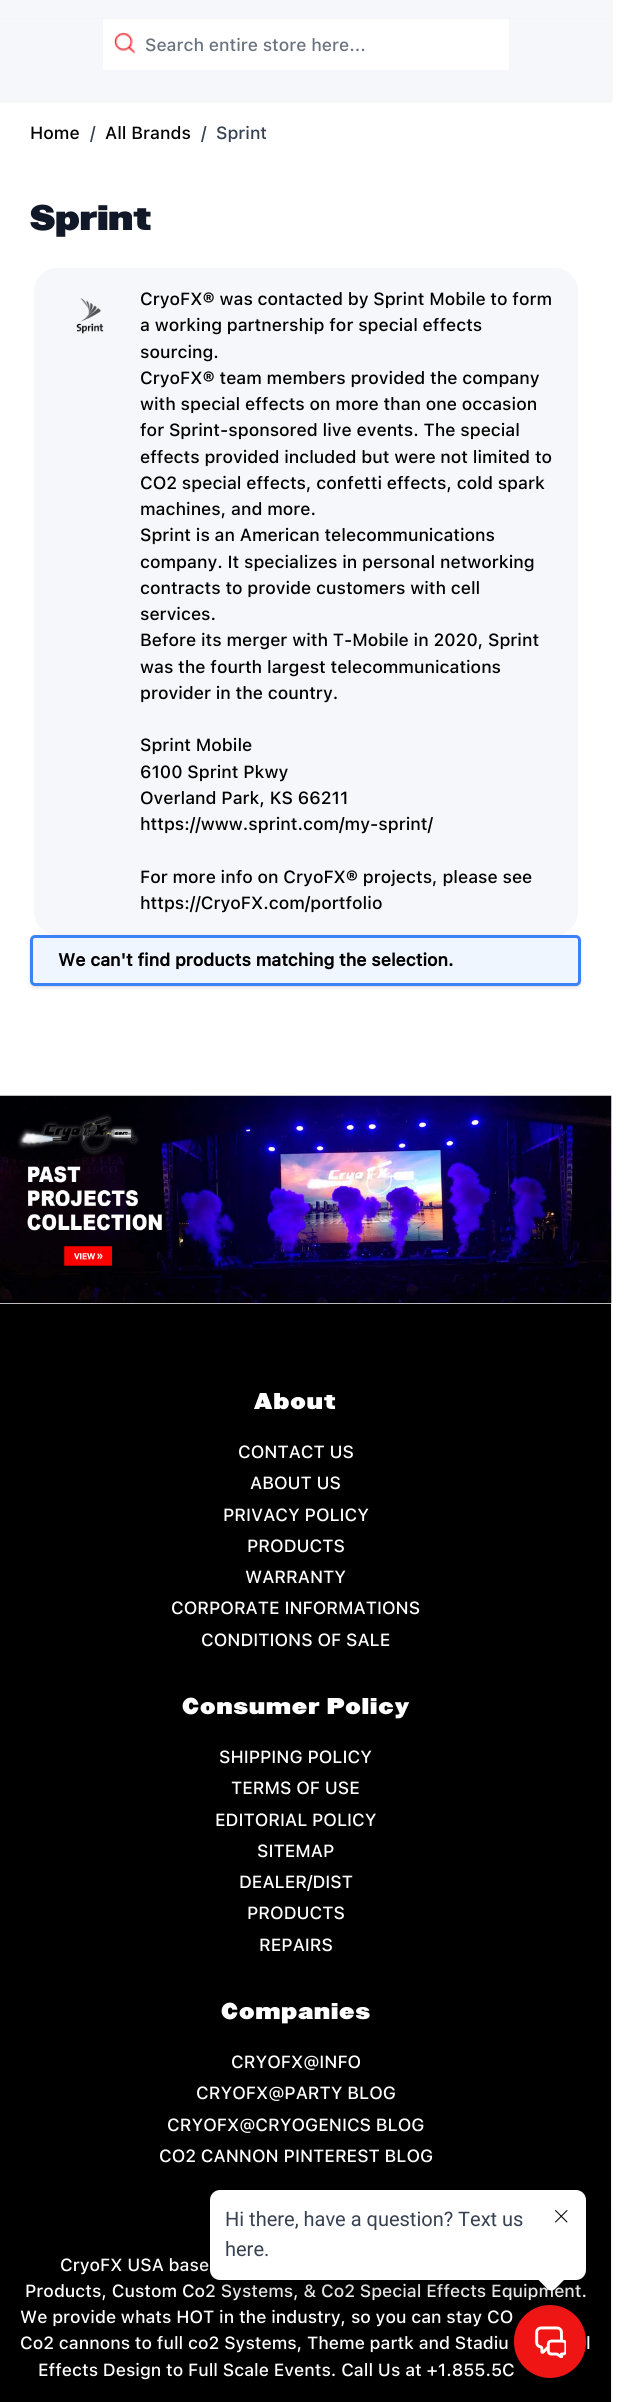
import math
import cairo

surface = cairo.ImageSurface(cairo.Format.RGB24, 629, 2402)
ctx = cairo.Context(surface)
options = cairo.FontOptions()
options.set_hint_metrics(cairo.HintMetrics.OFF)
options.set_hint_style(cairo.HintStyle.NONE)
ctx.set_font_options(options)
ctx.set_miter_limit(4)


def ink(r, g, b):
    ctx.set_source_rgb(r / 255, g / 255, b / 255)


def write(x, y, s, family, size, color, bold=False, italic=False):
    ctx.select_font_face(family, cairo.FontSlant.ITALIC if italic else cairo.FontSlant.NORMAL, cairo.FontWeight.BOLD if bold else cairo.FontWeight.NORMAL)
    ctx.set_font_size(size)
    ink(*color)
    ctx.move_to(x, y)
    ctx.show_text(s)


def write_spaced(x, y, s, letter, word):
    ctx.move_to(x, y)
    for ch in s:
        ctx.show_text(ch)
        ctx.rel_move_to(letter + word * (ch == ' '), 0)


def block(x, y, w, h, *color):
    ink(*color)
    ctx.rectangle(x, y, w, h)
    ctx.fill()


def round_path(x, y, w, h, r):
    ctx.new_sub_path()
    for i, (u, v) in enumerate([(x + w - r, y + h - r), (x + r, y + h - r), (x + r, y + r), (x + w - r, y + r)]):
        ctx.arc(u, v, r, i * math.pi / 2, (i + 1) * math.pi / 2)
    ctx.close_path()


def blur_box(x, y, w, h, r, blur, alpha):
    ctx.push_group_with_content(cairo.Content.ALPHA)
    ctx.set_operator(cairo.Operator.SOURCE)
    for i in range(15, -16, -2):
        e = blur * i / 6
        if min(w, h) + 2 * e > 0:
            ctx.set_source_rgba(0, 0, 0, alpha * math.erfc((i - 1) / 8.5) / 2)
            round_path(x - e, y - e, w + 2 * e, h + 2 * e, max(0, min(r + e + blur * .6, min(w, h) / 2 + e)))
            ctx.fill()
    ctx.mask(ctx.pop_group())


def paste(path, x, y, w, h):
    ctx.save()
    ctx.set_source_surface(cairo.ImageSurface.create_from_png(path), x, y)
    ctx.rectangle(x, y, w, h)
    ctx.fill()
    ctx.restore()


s1 = dict(family="SF Pro Text Medium", size=17.5, color=(107, 114, 128))
s2 = dict(family="SF Pro Text Medium", size=17.5, color=(0, 0, 0))
s3 = dict(family="SF Pro Text Medium", size=17.5, color=(55, 65, 81))
s4 = dict(family="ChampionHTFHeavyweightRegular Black", size=31, color=(17, 24, 39))
s5 = dict(family="SF Pro Text", size=17.5, color=(0, 0, 0), bold=True)
s6 = dict(family="SF Pro Text Medium", size=17.5, color=(255, 255, 255))
s7 = dict(family="Roboto", size=20, color=(55, 65, 81))

ink(255, 255, 255)
ctx.paint()
ink(0, 0, 0)
blur_box(0, -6, 611, 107, 0, 2, 0.1)
block(0, 0, 611, 18, 245, 247, 250)
block(0, 18, 611, 1, 245, 245, 245)
block(0, 19, 611, 82, 245, 247, 250)
block(103, 19, 406, 51, 255, 255, 255)
paste("pic1.png", 113, 32, 23, 22)
write(145, 51, "Search entire store here...", **s1)
write(30, 139, "Home", **s2)
write(90, 139, "/", **s3)
write(105, 139, "All Brands", **s2)
write(201, 139, "/", **s3)
write(216, 139, "Sprint", **s3)
write(30, 230, "Sprint", **s4)
ink(245, 247, 250)
round_path(34, 268, 544, 667, 23)
ctx.fill()
paste("pic2.png", 76, 298, 28, 36)
write(140, 305, "CryoFX® was contacted by Sprint Mobile to form", **s2)
write(140, 331, "a working partnership for special effects", **s2)
write(140, 358, "sourcing.", **s2)
write(140, 384, "CryoFX® team members provided the company", **s2)
write(140, 410, "with special effects on more than one occasion", **s2)
write(140, 436, "for Sprint-sponsored live events. The special", **s2)
write(140, 463, "effects provided included but were not limited to", **s2)
write(140, 489, "CO2 special effects, confetti effects, cold spark", **s2)
write(140, 515, "machines, and more.", **s2)
write(140, 541, "Sprint is an American telecommunications", **s2)
write(140, 568, "company. It specializes in personal networking", **s2)
write(140, 594, "contracts to provide customers with cell", **s2)
write(140, 620, "services.", **s2)
write(140, 646, "Before its merger with T-Mobile in 2020, Sprint", **s2)
write(140, 673, "was the fourth largest telecommunications", **s2)
write(140, 699, "provider in the country.", **s2)
write(140, 751, "Sprint Mobile", **s2)
write(140, 778, "6100 Sprint Pkwy", **s2)
write(140, 804, "Overland Park, KS 66211", **s2)
write(140, 830, "https://www.sprint.com/my-sprint/", **s2)
write(140, 883, "For more info on CryoFX® projects, please see", **s2)
write(140, 909, "https://CryoFX.com/portfolio", **s2)
ink(0, 0, 0)
blur_box(31, 938, 549, 48, 4, 1, 0.1)
blur_box(30, 936, 551, 52, 5, 2, 0.1)
ink(239, 246, 255)
round_path(31.5, 936.5, 548, 48, 3.5)
ctx.fill_preserve()
ink(59, 130, 246)
ctx.set_line_width(3)
ctx.stroke()
write(58, 966, "We can't find products matching the selection.", **s5)
ink(0, 0, 0)
blur_box(0, 1305, 611, 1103, 0, 2, 0.1)
paste("pic3.png", 0, 1095, 612, 209)
paste("pic4.png", 17, 1114, 145, 152)
block(0, 1304, 611, 1098, 0, 0, 0)
ctx.select_font_face("ChampionHTFHeavyweightRegular Black")
ctx.set_font_size(20)
ink(255, 255, 255)
write_spaced(254, 1409, "About", 1, 0)
write(238, 1458, "CONTACT US", **s6)
write(250, 1489, "ABOUT US", **s6)
write(223, 1521, "PRIVACY POLICY", **s6)
write(247, 1552, "PRODUCTS", **s6)
write(245, 1583, "WARRANTY", **s6)
write(171, 1614, "CORPORATE INFORMATIONS", **s6)
write(201, 1646, "CONDITIONS OF SALE", **s6)
ctx.select_font_face("ChampionHTFHeavyweightRegular Black")
ctx.set_font_size(20)
write_spaced(182, 1714, "Consumer Policy", 1, 0)
write(219, 1763, "SHIPPING POLICY", **s6)
write(231, 1794, "TERMS OF USE", **s6)
write(215, 1826, "EDITORIAL POLICY", **s6)
write(257, 1857, "SITEMAP", **s6)
write(239, 1888, "DEALER/DIST", **s6)
write(247, 1919, "PRODUCTS", **s6)
write(259, 1951, "REPAIRS", **s6)
ctx.select_font_face("ChampionHTFHeavyweightRegular Black")
ctx.set_font_size(20)
write_spaced(221, 2019, "Companies", 1, 0)
write(231, 2068, "CRYOFX@INFO", **s6)
write(196, 2099, "CRYOFX@PARTY BLOG", **s6)
write(167, 2131, "CRYOFX@CRYOGENICS BLOG", **s6)
write(159, 2162, "CO2 CANNON PINTEREST BLOG", **s6)
write(60, 2271, "CryoFX USA base", **s6)
write(25, 2297, "Products, Custom Co2 Systems, & Co2 Special Effects Equipment.", **s6)
write(20, 2323, "We provide whats HOT in the industry, so you can stay CO", **s6)
write(20, 2349, "Co2 cannons to full co2 Systems, Theme partk and Stadiu", **s6)
write(586, 2349, "l", **s6)
write(38, 2376, "Effects Design to Full Scale Events. Call Us at +1.855.5C", **s6)
ink(239, 21, 21)
round_path(514, 2305, 72, 73, 36)
ctx.fill()
paste("pic6.png", 535, 2326, 31, 32)
ink(0, 0, 0)
blur_box(210, 2200, 376, 90, 10, 12.5, 0.24)
ink(255, 255, 255)
round_path(210, 2190, 376, 90, 10)
ctx.fill()
write(225, 2226, "Hi there, have a question? Text us", **s7)
write(225, 2256, "here.", **s7)
ink(255, 255, 255)
ctx.new_path()
ctx.move_to(555, 2261)
ctx.line_to(565.5, 2271.5)
ctx.curve_to(567.5, 2273.5, 567.5, 2276.5, 565.5, 2278.5)
ctx.line_to(555, 2289)
ctx.curve_to(553, 2291, 549.5, 2291, 547.5, 2289)
ctx.line_to(537, 2278.5)
ctx.curve_to(535, 2276.5, 535, 2273.5, 537, 2271.5)
ctx.line_to(547.5, 2261)
ctx.curve_to(549.5, 2259, 553, 2259, 555, 2261)
ctx.close_path()
ctx.fill()
paste("pic5.png", 555, 2210, 13, 13)
surface.write_to_png("screenshot.png")
